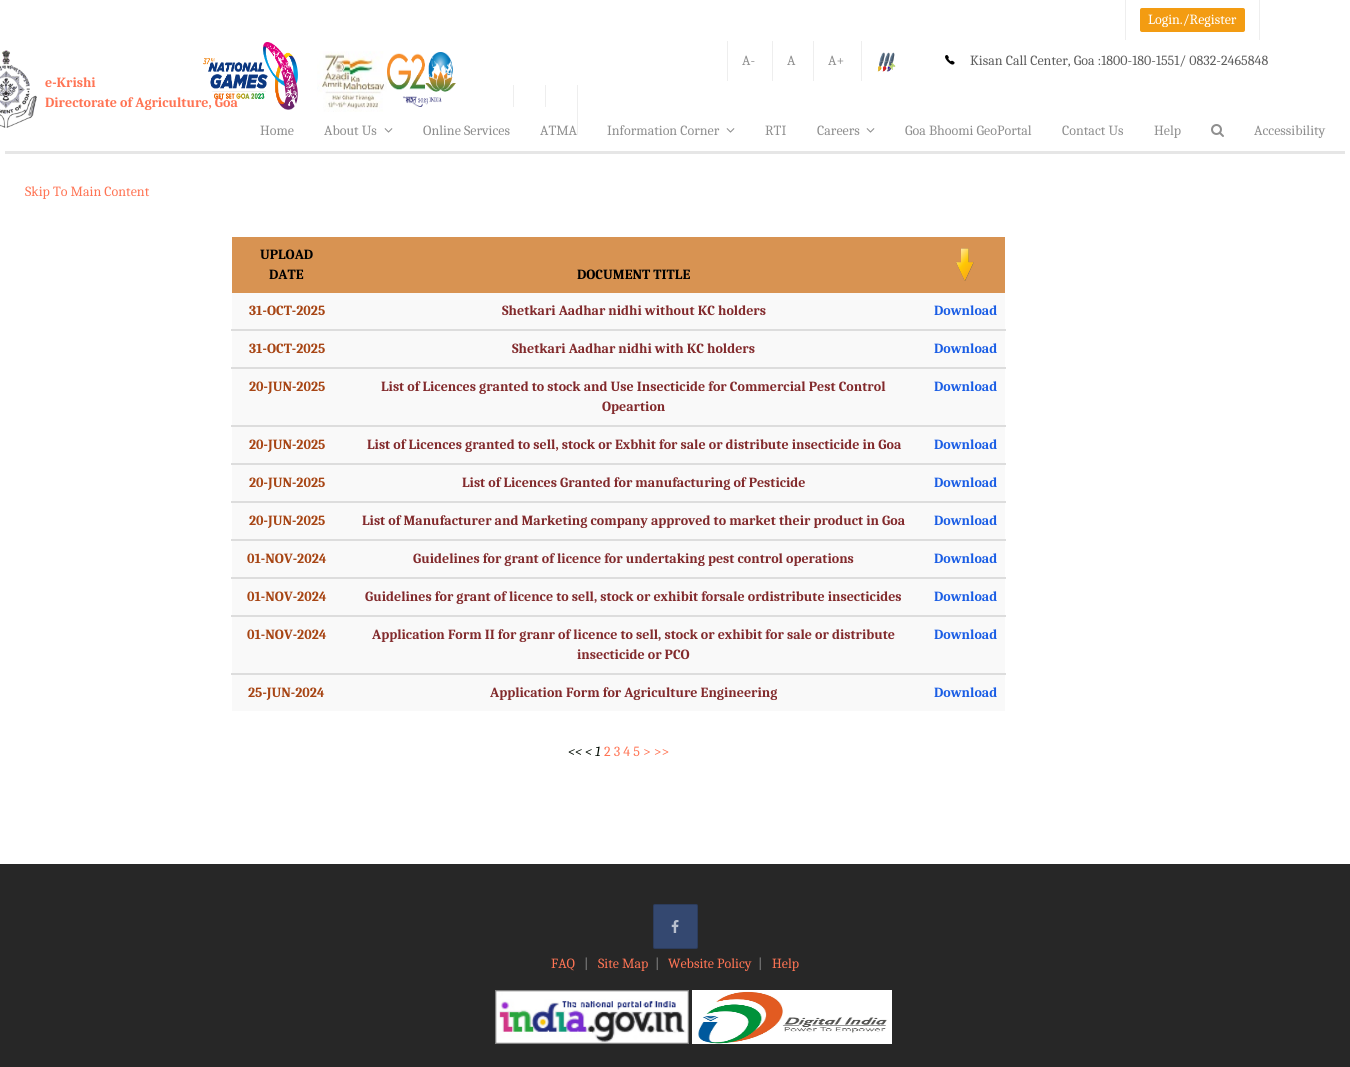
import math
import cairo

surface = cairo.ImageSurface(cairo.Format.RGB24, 1350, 1067)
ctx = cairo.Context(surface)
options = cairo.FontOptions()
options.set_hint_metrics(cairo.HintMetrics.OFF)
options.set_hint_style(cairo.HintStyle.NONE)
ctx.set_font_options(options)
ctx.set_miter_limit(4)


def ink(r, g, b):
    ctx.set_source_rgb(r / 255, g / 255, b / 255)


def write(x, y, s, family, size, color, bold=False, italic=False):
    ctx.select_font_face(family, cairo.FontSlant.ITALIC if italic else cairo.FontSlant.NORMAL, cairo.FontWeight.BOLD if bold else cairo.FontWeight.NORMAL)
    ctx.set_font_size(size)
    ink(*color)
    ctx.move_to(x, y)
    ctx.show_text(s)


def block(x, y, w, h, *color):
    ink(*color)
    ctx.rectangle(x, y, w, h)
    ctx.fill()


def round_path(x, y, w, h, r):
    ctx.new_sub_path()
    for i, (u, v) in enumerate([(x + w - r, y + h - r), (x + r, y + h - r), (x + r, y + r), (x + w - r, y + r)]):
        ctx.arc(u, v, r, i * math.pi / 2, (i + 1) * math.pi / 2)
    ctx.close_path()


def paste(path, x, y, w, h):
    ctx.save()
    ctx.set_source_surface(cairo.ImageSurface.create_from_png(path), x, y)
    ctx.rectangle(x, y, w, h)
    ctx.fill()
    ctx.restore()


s1 = dict(family="Caladea", size=14, color=(255, 255, 255))
s2 = dict(family="Caladea", size=14, color=(143, 143, 143))
s3 = dict(family="Caladea", size=14, color=(94, 94, 94))
s4 = dict(family="Caladea", size=14, color=(255, 116, 84), bold=True)
s5 = dict(family="Caladea", size=14, color=(255, 116, 84))
s6 = dict(family="Caladea", size=14, color=(0, 0, 0), bold=True)
s7 = dict(family="Caladea", size=14, color=(167, 69, 20), bold=True)
s8 = dict(family="Caladea", size=14, color=(130, 42, 44), bold=True)
s9 = dict(family="Caladea", size=14, color=(27, 94, 229), bold=True)
s10 = dict(family="Caladea", size=14, color=(0, 10, 0), italic=True)

ink(255, 255, 255)
ctx.paint()
block(1259, 0, 1, 40, 238, 238, 238)
block(1125, 0, 1, 40, 238, 238, 238)
ink(243, 156, 18)
round_path(1140, 8, 105, 24, 2)
ctx.fill()
write(1148, 24, "Login./Register", **s1)
block(727, 41, 1, 40, 238, 238, 238)
write(742, 65, "A-", **s2)
block(772, 41, 1, 40, 238, 238, 238)
write(787, 65, "A", **s2)
block(813, 41, 1, 40, 238, 238, 238)
write(828, 65, "A+", **s2)
block(861, 41, 1, 40, 238, 238, 238)
paste("pic1.png", 877, 52, 19, 20)
paste("pic2.png", 945, 55, 10, 10)
write(970, 65, "Kisan Call Center, Goa :1800-180-1551/ 0832-2465848", **s3)
block(5, 151, 1340, 3, 230, 230, 230)
paste("pic3.png", 0, 50, 37, 78)
write(45, 87, "e-Krishi", **s4)
write(45, 107, "Directorate of Agriculture, Goa", **s4)
paste("pic4.png", 203, 42, 95, 68)
paste("pic5.png", 317, 51, 70, 61)
paste("pic6.png", 387, 52, 69, 55)
block(577, 85, 1, 50, 238, 238, 238)
block(513, 85, 1, 22, 238, 238, 238)
block(545, 85, 1, 22, 238, 238, 238)
write(260, 135, "Home", **s2)
write(324, 135, "About Us", **s2)
paste("pic7.png", 384, 128, 9, 5)
write(423, 135, "Online Services", **s2)
write(540, 135, "ATMA", **s2)
write(607, 135, "Information Corner", **s2)
paste("pic7.png", 726, 128, 9, 5)
write(765, 135, "RTI", **s2)
write(817, 135, "Careers", **s2)
paste("pic7.png", 866, 128, 9, 5)
write(905, 135, "Goa Bhoomi GeoPortal", **s2)
write(1062, 135, "Contact Us", **s2)
write(1154, 135, "Help", **s2)
paste("pic8.png", 1211, 124, 13, 13)
write(1254, 135, "Accessibility", **s2)
write(25, 196, "Skip To Main Content", **s5)
block(232, 237, 773, 56, 216, 147, 82)
write(260, 259, "UPLOAD", **s6)
write(269, 279, "DATE", **s6)
write(577, 279, "DOCUMENT TITLE", **s6)
paste("pic9.png", 956, 248, 18, 33)
block(232, 293, 773, 36, 249, 249, 249)
write(249, 315, "31-OCT-2025", **s7)
write(502, 315, "Shetkari Aadhar nidhi without KC holders", **s8)
write(934, 315, "Download", **s9)
block(231, 329, 775, 2, 221, 221, 221)
block(232, 331, 773, 36, 249, 249, 249)
write(249, 353, "31-OCT-2025", **s7)
write(512, 353, "Shetkari Aadhar nidhi with KC holders", **s8)
write(934, 353, "Download", **s9)
block(231, 367, 775, 2, 221, 221, 221)
block(232, 369, 773, 56, 249, 249, 249)
write(249, 391, "20-JUN-2025", **s7)
write(381, 391, "List of Licences granted to stock and Use Insecticide for Commercial Pest Control", **s8)
write(602, 411, "Opeartion", **s8)
write(934, 391, "Download", **s9)
block(231, 425, 775, 2, 221, 221, 221)
block(232, 427, 773, 36, 249, 249, 249)
write(249, 449, "20-JUN-2025", **s7)
write(367, 449, "List of Licences granted to sell, stock or Exbhit for sale or distribute insecticide in Goa", **s8)
write(934, 449, "Download", **s9)
block(231, 463, 775, 2, 221, 221, 221)
block(232, 465, 773, 36, 249, 249, 249)
write(249, 487, "20-JUN-2025", **s7)
write(462, 487, "List of Licences Granted for manufacturing of Pesticide", **s8)
write(934, 487, "Download", **s9)
block(231, 501, 775, 2, 221, 221, 221)
block(232, 503, 773, 36, 249, 249, 249)
write(249, 525, "20-JUN-2025", **s7)
write(362, 525, "List of Manufacturer and Marketing company approved to market their product in Goa", **s8)
write(934, 525, "Download", **s9)
block(231, 539, 775, 2, 221, 221, 221)
block(232, 541, 773, 36, 249, 249, 249)
write(247, 563, "01-NOV-2024", **s7)
write(413, 563, "Guidelines for grant of licence for undertaking pest control operations", **s8)
write(934, 563, "Download", **s9)
block(231, 577, 775, 2, 221, 221, 221)
block(232, 579, 773, 36, 249, 249, 249)
write(247, 601, "01-NOV-2024", **s7)
write(365, 601, "Guidelines for grant of licence to sell, stock or exhibit forsale ordistribute insecticides", **s8)
write(934, 601, "Download", **s9)
block(231, 615, 775, 2, 221, 221, 221)
block(232, 617, 773, 56, 249, 249, 249)
write(247, 639, "01-NOV-2024", **s7)
write(372, 639, "Application Form II for granr of licence to sell, stock or exhibit for sale or distribute", **s8)
write(577, 659, "insecticide or PCO", **s8)
write(934, 639, "Download", **s9)
block(231, 673, 775, 2, 221, 221, 221)
block(232, 675, 773, 36, 249, 249, 249)
write(248, 697, "25-JUN-2024", **s7)
write(490, 697, "Application Form for Agriculture Engineering", **s8)
write(934, 697, "Download", **s9)
write(568, 756, "<< < 1", **s10)
write(604, 756, "2 3 4 5 > >>", **s5)
block(0, 864, 1350, 203, 39, 39, 39)
ink(52, 72, 112)
round_path(653, 904, 45, 45, 2)
ctx.fill()
round_path(653.5, 904.5, 44, 44, 1.5)
ctx.set_source_rgba(0.055, 0.055, 0.055, 0.2)
ctx.set_line_width(1)
ctx.stroke()
paste("pic10.png", 671, 920, 8, 13)
write(551, 968, "FAQ", **s5)
write(584, 968, "|", **s2)
write(598, 968, "Site Map", **s5)
write(655, 968, "|", **s2)
write(668, 968, "Website Policy", **s5)
write(758, 968, "|", **s2)
write(772, 968, "Help", **s5)
paste("pic11.png", 495, 990, 194, 54)
paste("pic12.png", 692, 990, 200, 54)
surface.write_to_png("screenshot.png")
